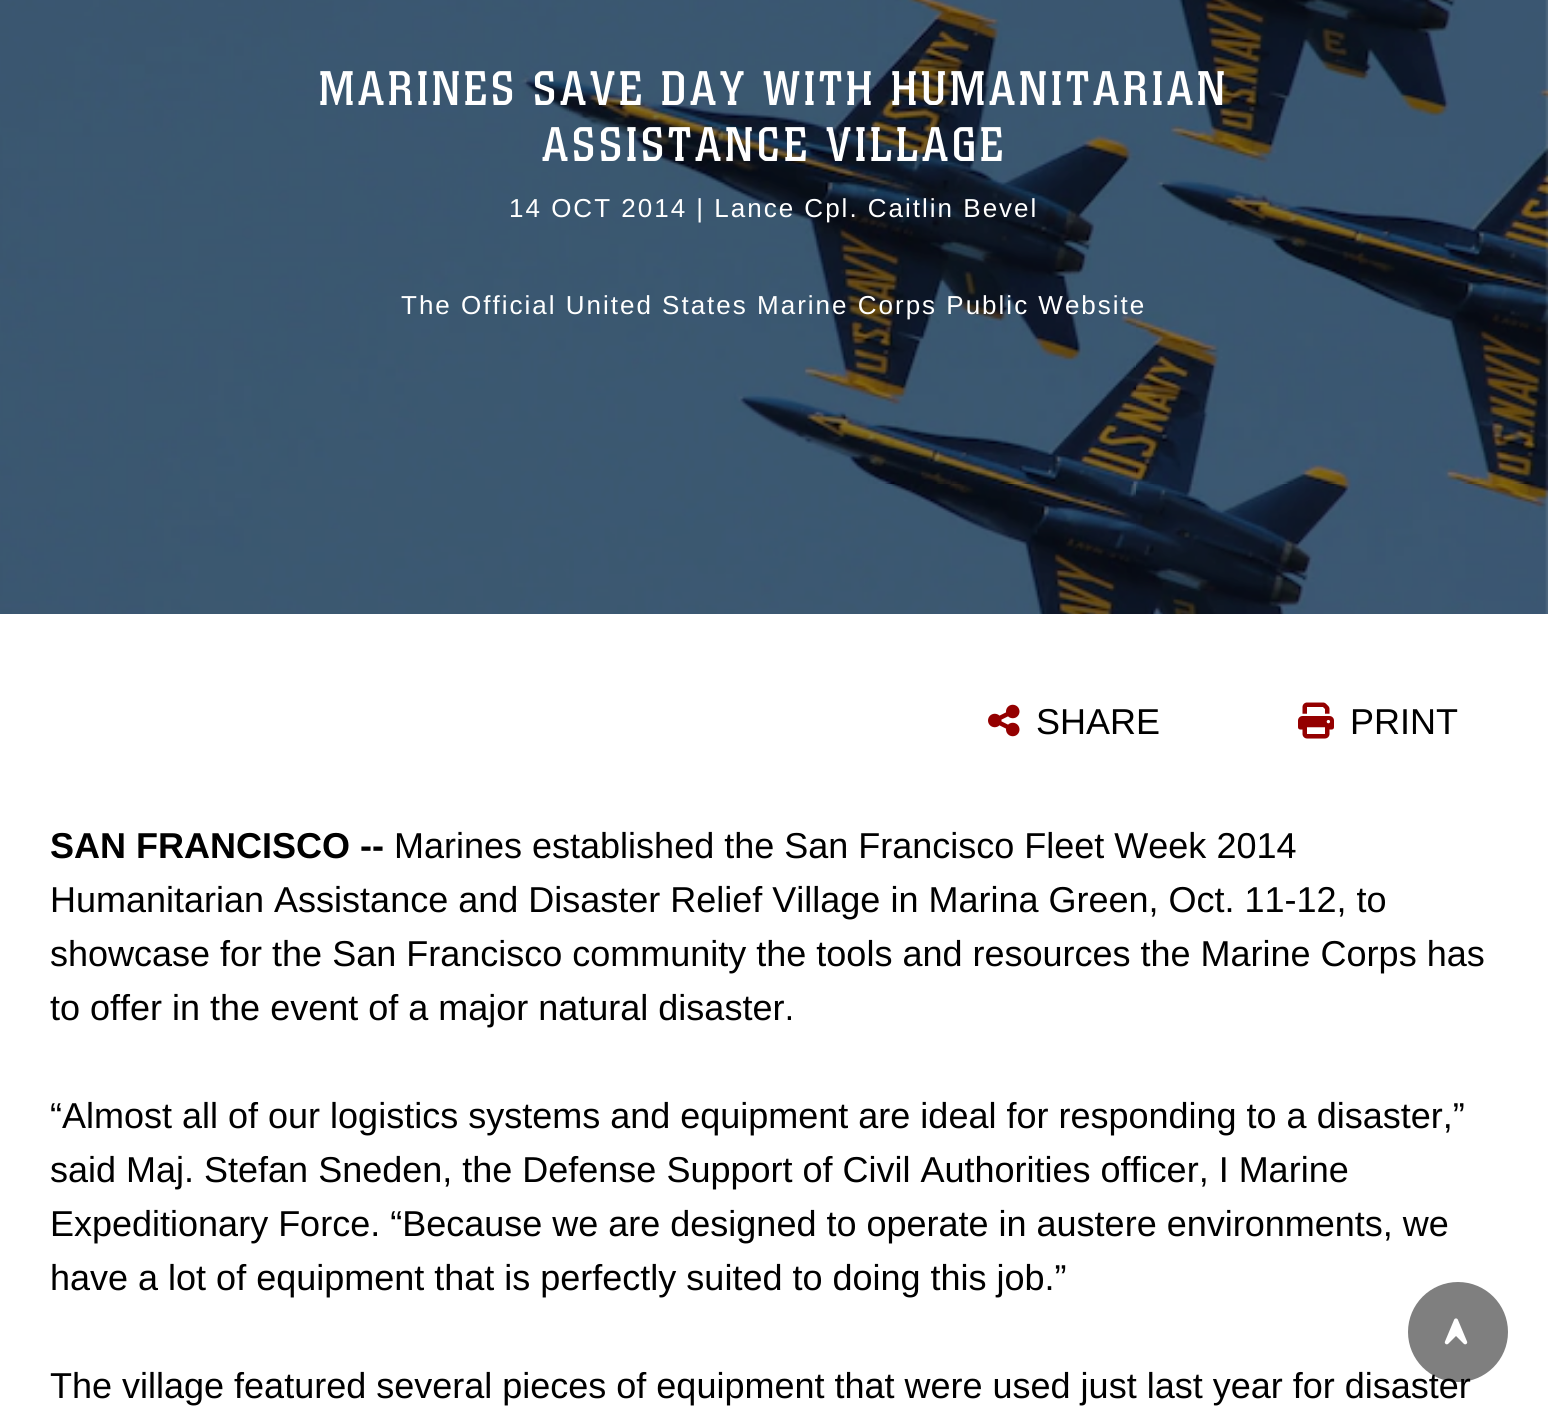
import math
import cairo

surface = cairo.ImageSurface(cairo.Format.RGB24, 1548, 1421)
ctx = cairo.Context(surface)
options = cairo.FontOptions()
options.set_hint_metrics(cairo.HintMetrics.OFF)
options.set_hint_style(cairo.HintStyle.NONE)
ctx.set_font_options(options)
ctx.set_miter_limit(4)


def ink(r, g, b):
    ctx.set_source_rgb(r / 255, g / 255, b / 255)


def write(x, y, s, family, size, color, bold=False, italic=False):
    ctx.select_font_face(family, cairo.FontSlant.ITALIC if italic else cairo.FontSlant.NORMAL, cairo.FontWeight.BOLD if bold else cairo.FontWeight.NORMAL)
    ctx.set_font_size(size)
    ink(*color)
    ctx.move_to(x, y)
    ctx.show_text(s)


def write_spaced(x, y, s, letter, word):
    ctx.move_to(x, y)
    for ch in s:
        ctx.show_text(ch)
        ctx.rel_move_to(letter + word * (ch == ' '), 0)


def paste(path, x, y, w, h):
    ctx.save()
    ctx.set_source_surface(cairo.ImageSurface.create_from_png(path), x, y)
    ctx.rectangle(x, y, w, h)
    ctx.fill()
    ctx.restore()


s1 = dict(family="Liberation Sans", size=36, color=(0, 0, 0))
s2 = dict(family="Liberation Sans", size=36, color=(0, 0, 0), bold=True)

ink(255, 255, 255)
ctx.paint()
paste("pic1.png", 0, 0, 1548, 614)
ctx.select_font_face("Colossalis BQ")
ctx.set_font_size(48)
ink(255, 255, 255)
write_spaced(319, 105, "MARINES SAVE DAY WITH HUMANITARIAN", 4, 0)
write_spaced(542, 161, "ASSISTANCE VILLAGE", 4, 0)
ctx.select_font_face("Liberation Sans")
ctx.set_font_size(26)
write_spaced(509, 217, "14 OCT 2014 | Lance Cpl. Caitlin Bevel", 2, 0)
write_spaced(401, 314, "The Official United States Marine Corps Public Website", 2, 0)
paste("pic2.png", 988, 704, 32, 33)
write(1036, 734, "SHARE", **s1)
paste("pic3.png", 1298, 702, 36, 37)
write(1350, 734, "PRINT", **s1)
write(394, 858, "Marines established the San Francisco Fleet Week 2014", **s1)
write(50, 912, "Humanitarian Assistance and Disaster Relief Village in Marina Green, Oct. 11-12, to", **s1)
write(50, 966, "showcase for the San Francisco community the tools and resources the Marine Corps has", **s1)
write(50, 1020, "to offer in the event of a major natural disaster.", **s1)
write(50, 1128, "“Almost all of our logistics systems and equipment are ideal for responding to a disaster,”", **s1)
write(50, 1182, "said Maj. Stefan Sneden, the Defense Support of Civil Authorities officer, I Marine", **s1)
write(50, 1236, "Expeditionary Force. “Because we are designed to operate in austere environments, we", **s1)
write(50, 1290, "have a lot of equipment that is perfectly suited to doing this job.”", **s1)
write(50, 1398, "The village featured several pieces of equipment that were used just last year for disaster", **s1)
write(50, 858, "SAN FRANCISCO --", **s2)
ctx.set_source_rgba(0, 0, 0, 0.5)
ctx.new_path()
ctx.arc(1458, 1332, 50, 0, 2 * math.pi)
ctx.fill()
paste("pic4.png", 1444, 1318, 24, 27)
surface.write_to_png("screenshot.png")
